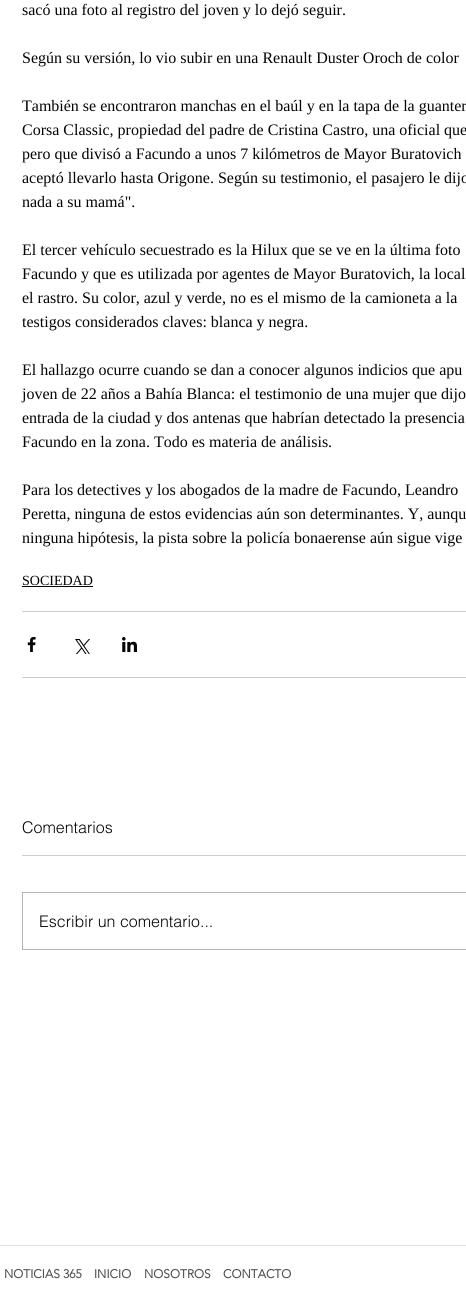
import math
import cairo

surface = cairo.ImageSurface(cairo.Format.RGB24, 466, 1302)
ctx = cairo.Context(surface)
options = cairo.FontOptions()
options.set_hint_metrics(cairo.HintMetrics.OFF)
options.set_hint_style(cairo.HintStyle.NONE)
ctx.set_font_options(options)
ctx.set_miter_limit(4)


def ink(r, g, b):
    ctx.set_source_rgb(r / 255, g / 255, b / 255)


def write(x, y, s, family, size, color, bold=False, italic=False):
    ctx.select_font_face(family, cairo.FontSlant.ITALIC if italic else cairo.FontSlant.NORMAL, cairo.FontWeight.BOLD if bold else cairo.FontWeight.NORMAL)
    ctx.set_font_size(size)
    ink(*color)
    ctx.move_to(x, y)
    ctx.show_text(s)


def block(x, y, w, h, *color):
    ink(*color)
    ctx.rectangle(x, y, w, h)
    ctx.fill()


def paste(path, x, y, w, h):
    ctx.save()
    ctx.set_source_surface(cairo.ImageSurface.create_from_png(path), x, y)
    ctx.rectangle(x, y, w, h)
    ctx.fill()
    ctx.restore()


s1 = dict(family="Liberation Serif", size=16, color=(3, 3, 3))
s2 = dict(family="Liberation Serif", size=14, color=(3, 3, 3))
s3 = dict(family="helvetica Light", size=16, color=(3, 3, 3))
s4 = dict(family="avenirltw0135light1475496", size=12, color=(81, 79, 79), bold=True)

ink(255, 255, 255)
ctx.paint()
write(22, 15, "sacó una foto al registro del joven y lo dejó seguir.", **s1)
write(22, 63, "Según su versión, lo vio subir en una Renault Duster Oroch de color", **s1)
write(22, 111, "También se encontraron manchas en el baúl y en la tapa de la guanter", **s1)
write(22, 135, "Corsa Classic, propiedad del padre de Cristina Castro, una oficial que", **s1)
write(22, 159, "pero que divisó a Facundo a unos 7 kilómetros de Mayor Buratovich", **s1)
write(22, 183, "aceptó llevarlo hasta Origone. Según su testimonio, el pasajero le dijo", **s1)
write(22, 207, "nada a su mamá\".", **s1)
write(22, 255, "El tercer vehículo secuestrado es la Hilux que se ve en la última foto", **s1)
write(22, 279, "Facundo y que es utilizada por agentes de Mayor Buratovich, la local", **s1)
write(22, 303, "el rastro. Su color, azul y verde, no es el mismo de la camioneta a la", **s1)
write(22, 327, "testigos considerados claves: blanca y negra.", **s1)
write(22, 375, "El hallazgo ocurre cuando se dan a conocer algunos indicios que apu", **s1)
write(22, 399, "joven de 22 años a Bahía Blanca: el testimonio de una mujer que dijo", **s1)
write(22, 423, "entrada de la ciudad y dos antenas que habrían detectado la presencia", **s1)
write(22, 447, "Facundo en la zona. Todo es materia de análisis.", **s1)
write(22, 495, "Para los detectives y los abogados de la madre de Facundo, Leandro", **s1)
write(22, 519, "Peretta, ninguna de estos evidencias aún son determinantes. Y, aunqu", **s1)
write(22, 543, "ninguna hipótesis, la pista sobre la policía bonaerense aún sigue vige", **s1)
write(22, 585, "SOCIEDAD", **s2)
block(22, 586, 71, 1, 3, 3, 3)
block(22, 611, 444, 1, 205, 205, 205)
paste("pic1.png", 27, 637, 9, 15)
paste("pic2.png", 75, 639, 15, 15)
paste("pic3.png", 122, 637, 15, 15)
block(22, 677, 444, 1, 205, 205, 205)
write(22, 833, "Comentarios", **s3)
block(22, 855, 444, 1, 205, 205, 205)
ctx.rectangle(22.5, 892.5, 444, 57)
ink(179, 179, 179)
ctx.set_line_width(1)
ctx.stroke()
write(39, 927, "Escribir un comentario...", **s3)
block(0, 1245, 466, 1, 226, 223, 223)
write(4, 1278, "NOTICIAS 365", **s4)
write(94, 1278, "INICIO", **s4)
write(144, 1278, "NOSOTROS", **s4)
write(223, 1278, "CONTACTO", **s4)
surface.write_to_png("screenshot.png")
